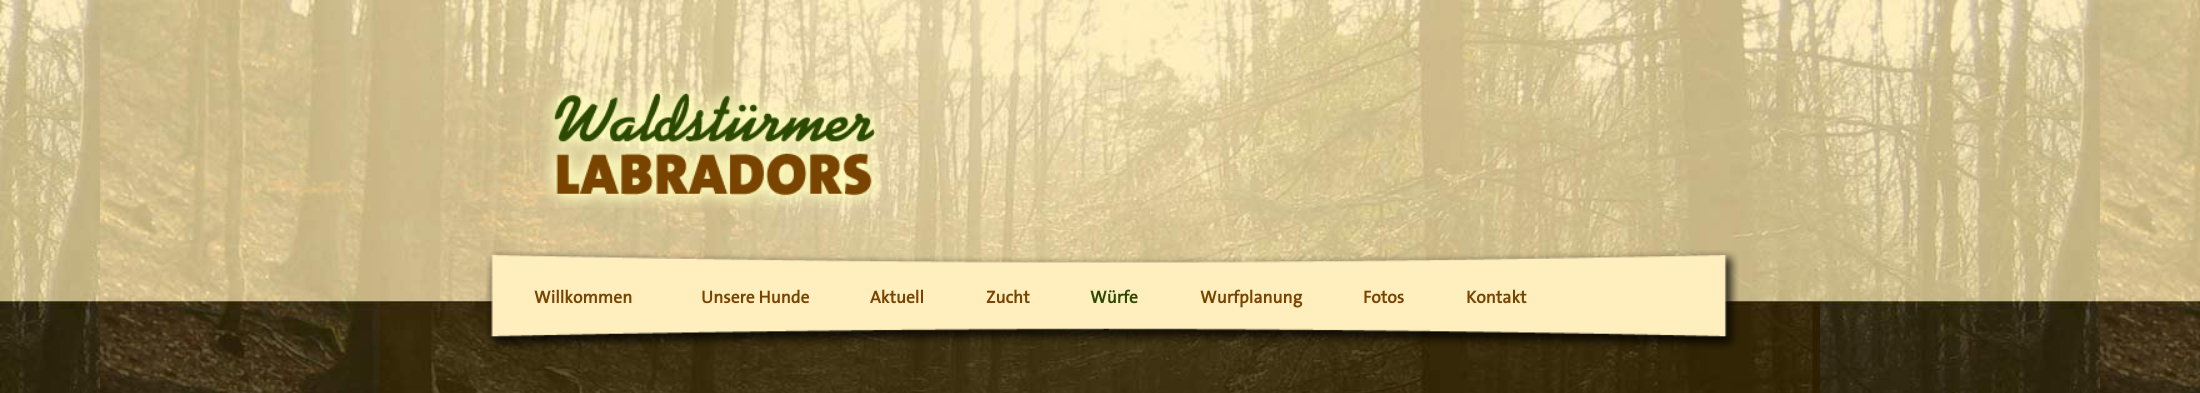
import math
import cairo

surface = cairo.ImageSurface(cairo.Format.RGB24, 2200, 393)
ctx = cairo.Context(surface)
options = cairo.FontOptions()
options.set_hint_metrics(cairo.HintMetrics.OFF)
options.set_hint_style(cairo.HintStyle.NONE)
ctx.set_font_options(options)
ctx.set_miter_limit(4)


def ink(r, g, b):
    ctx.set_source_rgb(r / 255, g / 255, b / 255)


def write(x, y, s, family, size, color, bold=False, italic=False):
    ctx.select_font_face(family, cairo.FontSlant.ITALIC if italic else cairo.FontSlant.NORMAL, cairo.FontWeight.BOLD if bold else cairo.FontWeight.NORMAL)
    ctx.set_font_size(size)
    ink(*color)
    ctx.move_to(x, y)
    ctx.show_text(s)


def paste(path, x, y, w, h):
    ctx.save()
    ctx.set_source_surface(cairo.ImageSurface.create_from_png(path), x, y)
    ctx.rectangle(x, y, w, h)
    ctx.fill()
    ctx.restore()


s1 = dict(family="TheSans", size=17.5, color=(121, 68, 0), bold=True)
s2 = dict(family="TheSans", size=17.5, color=(43, 73, 0), bold=True)

ink(255, 255, 255)
ctx.paint()
paste("pic1.png", 0, 0, 2200, 393)
paste("pic2.png", 543, 83, 341, 125)
paste("pic3.png", 486, 250, 1253, 100)
write(534, 303, "Willkommen", **s1)
write(701, 303, "Unsere Hunde", **s1)
write(870, 303, "Aktuell", **s1)
write(986, 303, "Zucht", **s1)
write(1090, 303, "Würfe", **s2)
write(1200, 303, "Wurfplanung", **s1)
write(1363, 303, "Fotos", **s1)
write(1466, 303, "Kontakt", **s1)
surface.write_to_png("screenshot.png")
